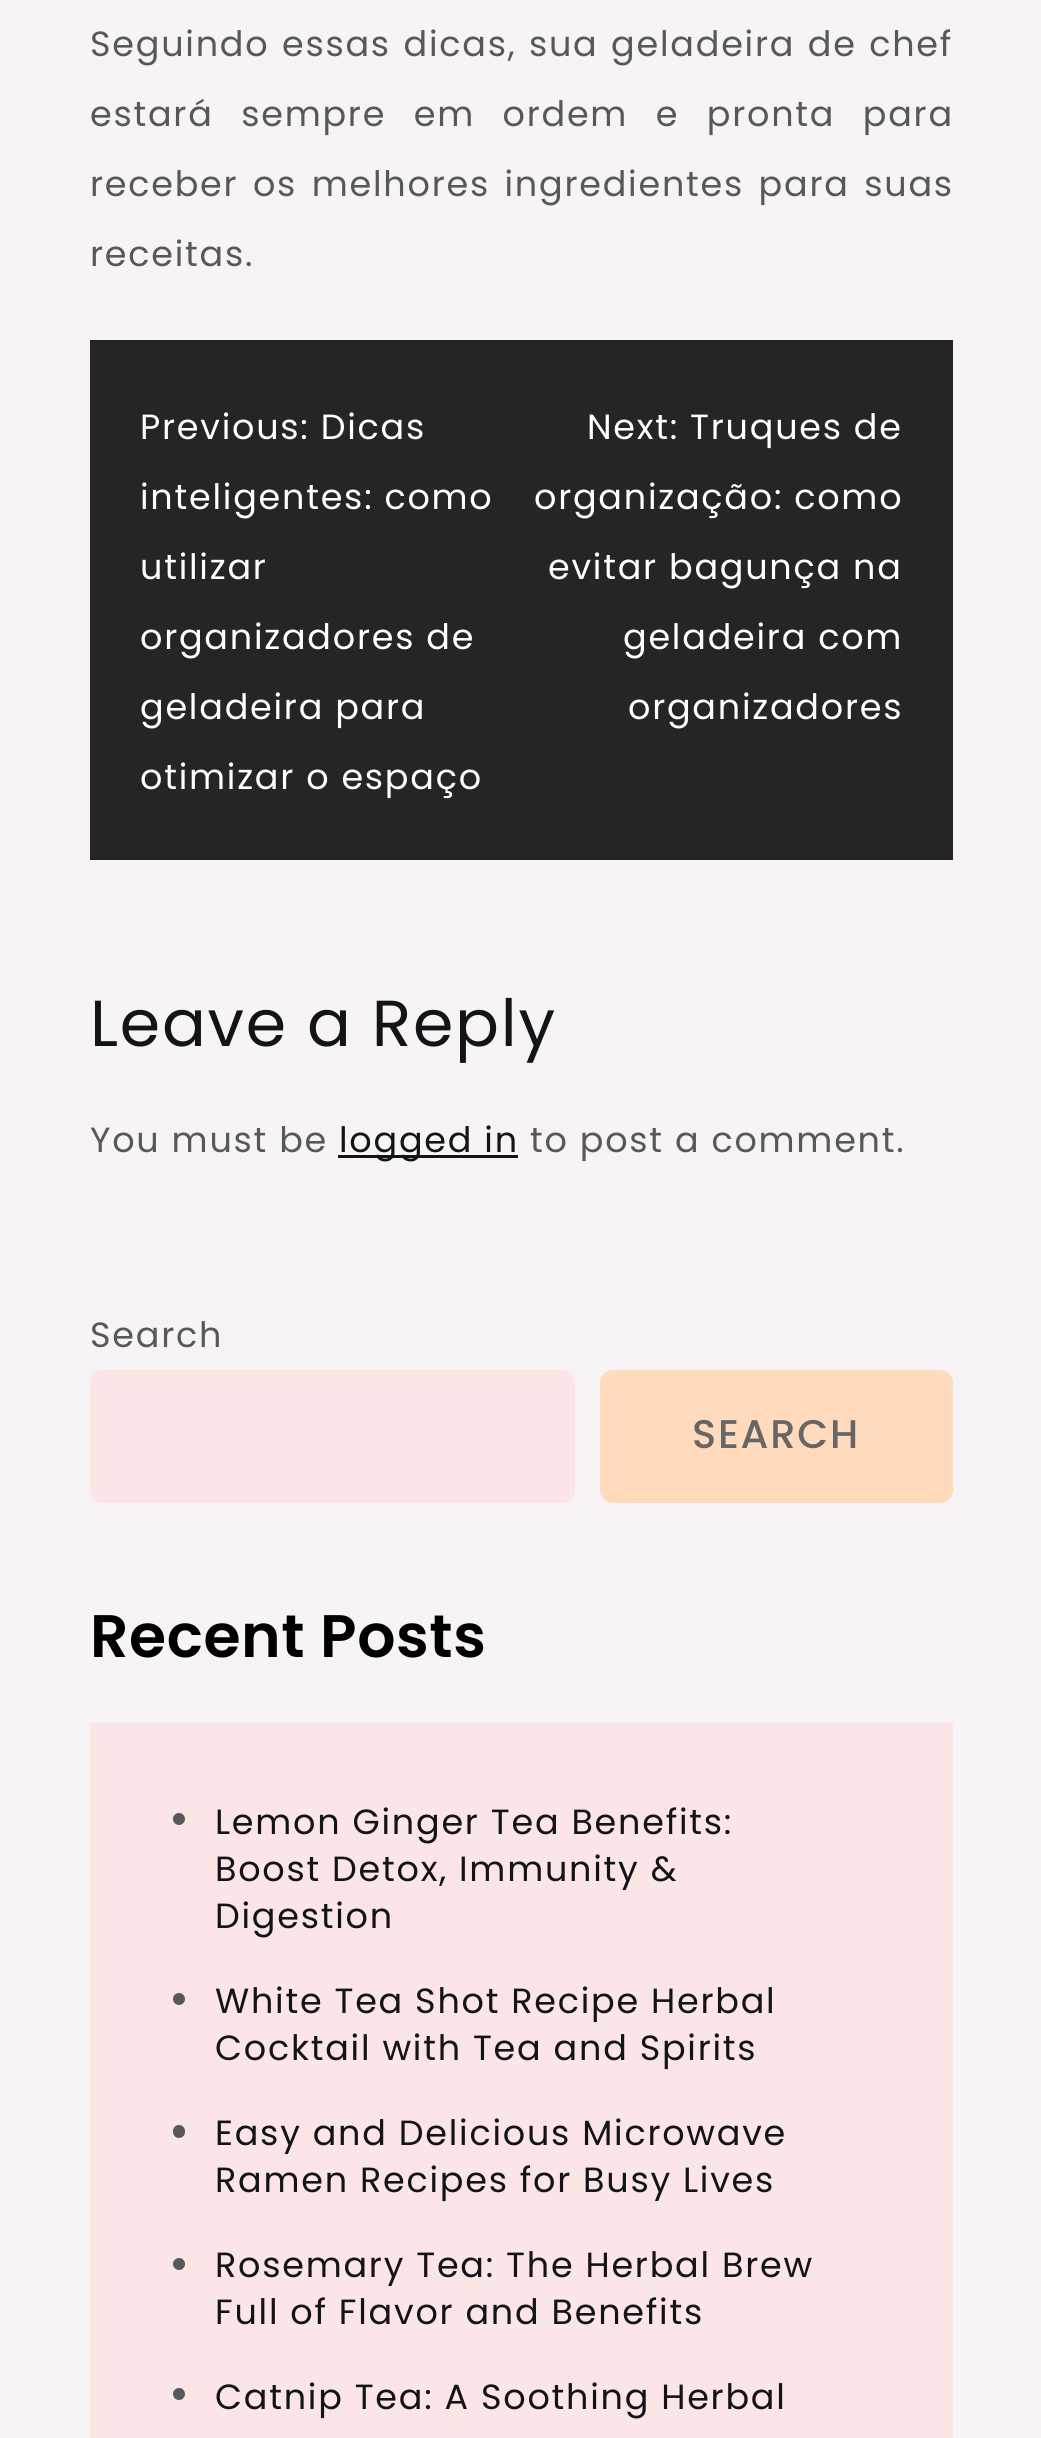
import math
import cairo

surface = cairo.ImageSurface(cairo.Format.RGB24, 1041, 2438)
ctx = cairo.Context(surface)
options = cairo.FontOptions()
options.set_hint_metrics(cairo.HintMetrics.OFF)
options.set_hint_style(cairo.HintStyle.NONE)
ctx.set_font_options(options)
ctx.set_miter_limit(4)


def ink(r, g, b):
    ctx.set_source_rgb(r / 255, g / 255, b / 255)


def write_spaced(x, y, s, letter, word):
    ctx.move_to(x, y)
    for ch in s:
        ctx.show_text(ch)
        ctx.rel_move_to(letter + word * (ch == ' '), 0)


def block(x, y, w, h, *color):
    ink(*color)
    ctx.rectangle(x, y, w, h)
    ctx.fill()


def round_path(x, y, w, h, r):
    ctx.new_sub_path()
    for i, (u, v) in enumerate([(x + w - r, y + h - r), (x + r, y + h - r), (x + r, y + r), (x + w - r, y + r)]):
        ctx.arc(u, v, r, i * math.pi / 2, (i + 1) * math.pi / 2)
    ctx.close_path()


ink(248, 243, 244)
ctx.paint()
ctx.select_font_face("Poppins")
ctx.set_font_size(35)
ink(86, 88, 89)
write_spaced(90, 56, "Seguindo essas dicas, sua geladeira de chef", 1.75, 1.5)
write_spaced(90, 126, "estará sempre em ordem e pronta para", 1.75, 16.5)
write_spaced(90, 196, "receber os melhores ingredientes para suas", 1.75, 3.5)
write_spaced(90, 266, "receitas.", 1.75, 0)
block(90, 340, 863, 520, 38, 37, 37)
ink(255, 255, 255)
write_spaced(140, 439, "Previous: Dicas", 1.75, 0)
write_spaced(140, 509, "inteligentes: como", 1.75, 0)
write_spaced(140, 579, "utilizar", 1.75, 0)
write_spaced(140, 649, "organizadores de", 1.75, 0)
write_spaced(140, 719, "geladeira para", 1.75, 0)
write_spaced(140, 789, "otimizar o espaço", 1.75, 0)
write_spaced(587, 439, "Next: Truques de", 1.75, 0)
write_spaced(534, 509, "organização: como", 1.75, 0)
write_spaced(548, 579, "evitar bagunça na", 1.75, 0)
write_spaced(623, 649, "geladeira com", 1.75, 0)
write_spaced(628, 719, "organizadores", 1.75, 0)
ctx.set_font_size(65)
ink(18, 20, 24)
write_spaced(90, 1046, "Leave a Reply", 1.75, 0)
ctx.set_font_size(35)
ink(86, 88, 89)
write_spaced(90, 1152, "You must be", 1.75, 0)
block(338, 1155, 180, 3, 18, 20, 24)
write_spaced(339, 1152, "logged in", 1.75, 0)
ink(86, 88, 89)
write_spaced(530, 1152, "to post a comment.", 1.75, 0)
write_spaced(90, 1347, "Search", 1.75, 0)
ink(252, 229, 230)
round_path(90, 1370, 485, 133, 13)
ctx.fill()
ink(255, 218, 188)
round_path(602.5, 1372.5, 348, 128, 10.5)
ctx.fill_preserve()
ctx.set_line_width(5)
ctx.stroke()
ctx.select_font_face("Poppins Medium")
ctx.set_font_size(40)
ink(102, 102, 102)
write_spaced(692, 1448, "SEARCH", 1.75, 0)
ctx.select_font_face("Poppins SemiBold")
ctx.set_font_size(60)
ink(0, 0, 0)
write_spaced(90, 1657, "Recent Posts", 0.6, 0)
block(90, 1723, 863, 715, 252, 229, 230)
ink(86, 88, 89)
ctx.new_path()
ctx.arc(179, 1819, 6, 0, 2 * math.pi)
ctx.fill()
ctx.select_font_face("Poppins")
ctx.set_font_size(35)
ink(18, 20, 24)
write_spaced(215, 1834, "Lemon Ginger Tea Benefits:", 1.75, 0)
write_spaced(215, 1881, "Boost Detox, Immunity &", 1.75, 0)
write_spaced(215, 1928, "Digestion", 1.75, 0)
ink(86, 88, 89)
ctx.new_path()
ctx.arc(179, 1999, 6, 0, 2 * math.pi)
ctx.fill()
ink(18, 20, 24)
write_spaced(215, 2013, "White Tea Shot Recipe Herbal", 1.75, 0)
write_spaced(215, 2060, "Cocktail with Tea and Spirits", 1.75, 0)
ink(86, 88, 89)
round_path(173, 2125, 12, 13, 6)
ctx.fill()
ink(18, 20, 24)
write_spaced(215, 2145, "Easy and Delicious Microwave", 1.75, 0)
write_spaced(215, 2192, "Ramen Recipes for Busy Lives", 1.75, 0)
ink(86, 88, 89)
ctx.new_path()
ctx.arc(179, 2264, 6, 0, 2 * math.pi)
ctx.fill()
ink(18, 20, 24)
write_spaced(215, 2277, "Rosemary Tea: The Herbal Brew", 1.75, 0)
write_spaced(215, 2324, "Full of Flavor and Benefits", 1.75, 0)
ink(86, 88, 89)
ctx.new_path()
ctx.arc(179, 2394, 6, 0, 2 * math.pi)
ctx.fill()
ink(18, 20, 24)
write_spaced(215, 2409, "Catnip Tea: A Soothing Herbal", 1.75, 0)
surface.write_to_png("screenshot.png")
